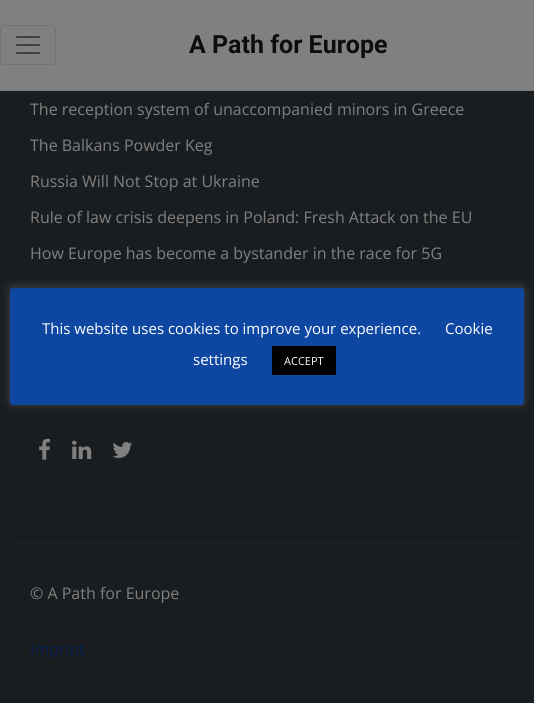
import math
import cairo

surface = cairo.ImageSurface(cairo.Format.RGB24, 534, 703)
ctx = cairo.Context(surface)
options = cairo.FontOptions()
options.set_hint_metrics(cairo.HintMetrics.OFF)
options.set_hint_style(cairo.HintStyle.NONE)
ctx.set_font_options(options)
ctx.set_miter_limit(4)


def ink(r, g, b):
    ctx.set_source_rgb(r / 255, g / 255, b / 255)


def write(x, y, s, family, size, color, bold=False, italic=False):
    ctx.select_font_face(family, cairo.FontSlant.ITALIC if italic else cairo.FontSlant.NORMAL, cairo.FontWeight.BOLD if bold else cairo.FontWeight.NORMAL)
    ctx.set_font_size(size)
    ink(*color)
    ctx.move_to(x, y)
    ctx.show_text(s)


def block(x, y, w, h, *color):
    ink(*color)
    ctx.rectangle(x, y, w, h)
    ctx.fill()


def round_path(x, y, w, h, r):
    ctx.new_sub_path()
    for i, (u, v) in enumerate([(x + w - r, y + h - r), (x + r, y + h - r), (x + r, y + r), (x + w - r, y + r)]):
        ctx.arc(u, v, r, i * math.pi / 2, (i + 1) * math.pi / 2)
    ctx.close_path()


def blur_box(x, y, w, h, r, blur, alpha):
    ctx.push_group_with_content(cairo.Content.ALPHA)
    ctx.set_operator(cairo.Operator.SOURCE)
    for i in range(15, -16, -2):
        e = blur * i / 6
        if min(w, h) + 2 * e > 0:
            ctx.set_source_rgba(0, 0, 0, alpha * math.erfc((i - 1) / 8.5) / 2)
            round_path(x - e, y - e, w + 2 * e, h + 2 * e, max(0, min(r + e + blur * .6, min(w, h) / 2 + e)))
            ctx.fill()
    ctx.mask(ctx.pop_group())


def paste(path, x, y, w, h):
    ctx.save()
    ctx.set_source_surface(cairo.ImageSurface.create_from_png(path), x, y)
    ctx.rectangle(x, y, w, h)
    ctx.fill()
    ctx.restore()


s1 = dict(family="Roboto", size=25, color=(13, 13, 13), bold=True)
s2 = dict(family="Open Sans", size=16, color=(128, 128, 128))
s3 = dict(family="Open Sans", size=16, color=(0, 26, 77))
s4 = dict(family="Open Sans", size=15, color=(255, 255, 255))
s5 = dict(family="Open Sans", size=11, color=(255, 255, 255))

ink(26, 29, 32)
ctx.paint()
block(0, 0, 534, 90, 128, 128, 128)
block(0, 90, 534, 1, 120, 121, 124)
round_path(0.5, 25.5, 55, 39, 3.5)
ink(115, 115, 115)
ctx.set_line_width(1)
ctx.stroke()
paste("pic1.png", 16, 36, 24, 18)
write(189, 53, "A Path for Europe", **s1)
block(15, 542, 504, 1, 36, 39, 42)
write(30, 115, "The reception system of unaccompanied minors in Greece", **s2)
write(30, 151, "The Balkans Powder Keg", **s2)
write(30, 187, "Russia Will Not Stop at Ukraine", **s2)
write(30, 223, "Rule of law crisis deepens in Poland: Fresh Attack on the EU", **s2)
write(30, 259, "How Europe has become a bystander in the race for 5G", **s2)
paste("pic2.png", 39, 438, 11, 22)
paste("pic3.png", 72, 440, 20, 19)
paste("pic4.png", 112, 442, 20, 16)
write(30, 599, "© A Path for Europe", **s2)
write(30, 655, "Imprint", **s3)
ink(172, 171, 171)
blur_box(10, 287, 514, 117, 3, 5, 0.3)
ink(13, 71, 161)
round_path(10, 288, 514, 117, 3)
ctx.fill()
write(42, 334, "This website uses cookies to improve your experience.", **s4)
write(445, 334, "Cookie", **s4)
write(193, 365, "settings", **s4)
block(272, 346, 64, 29, 0, 0, 0)
write(284, 365, "ACCEPT", **s5)
surface.write_to_png("screenshot.png")
